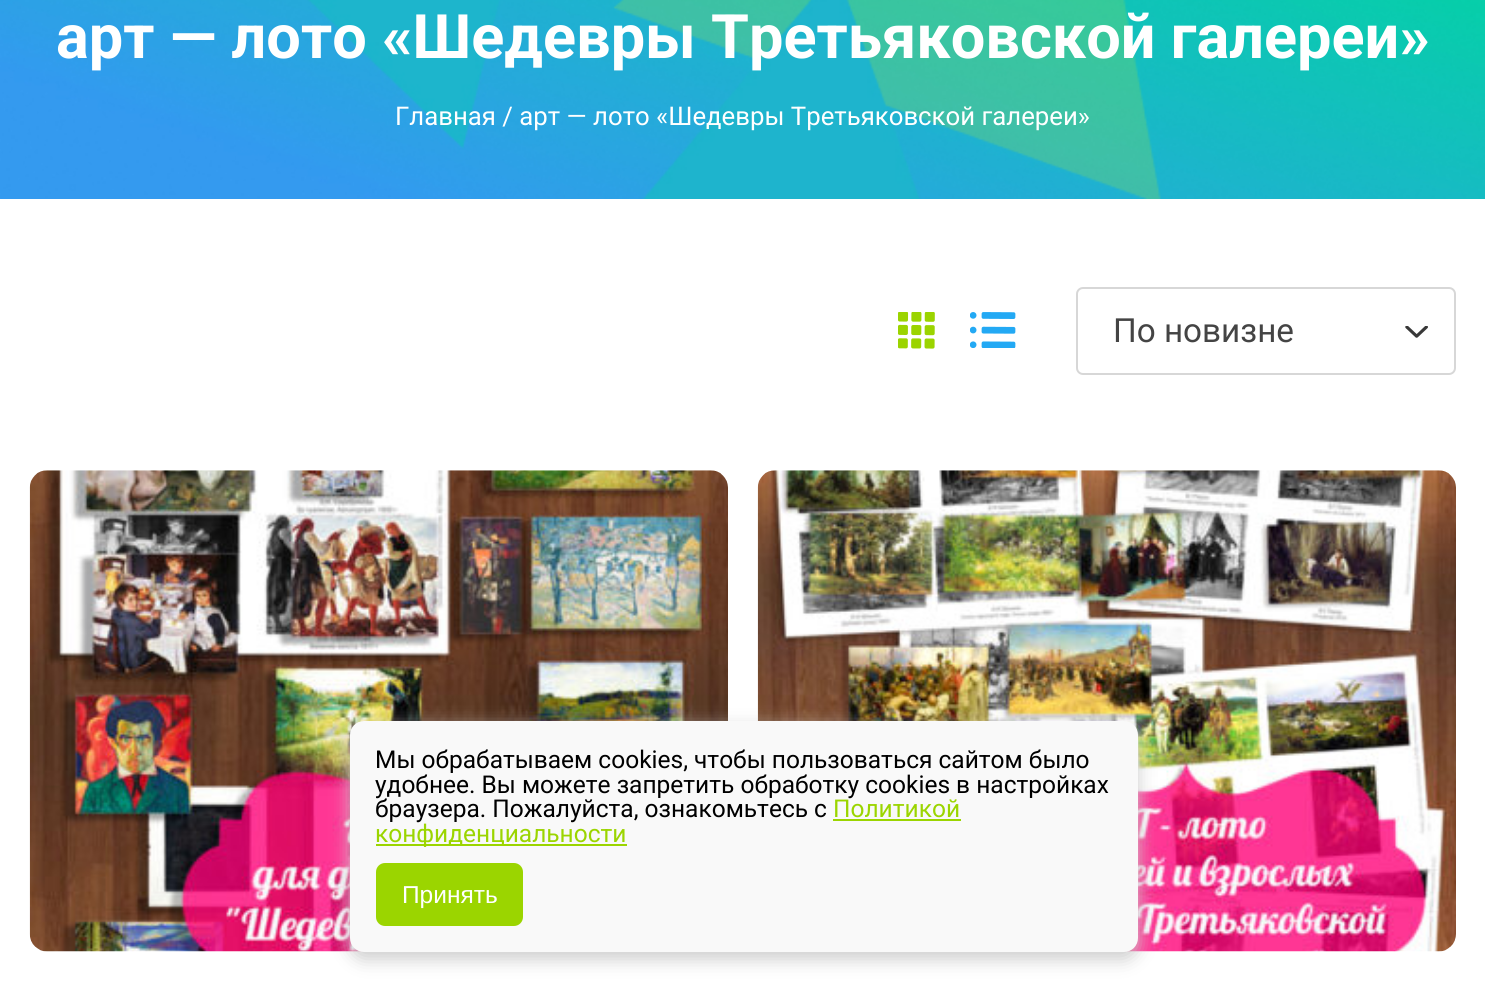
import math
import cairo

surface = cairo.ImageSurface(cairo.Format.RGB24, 1485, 986)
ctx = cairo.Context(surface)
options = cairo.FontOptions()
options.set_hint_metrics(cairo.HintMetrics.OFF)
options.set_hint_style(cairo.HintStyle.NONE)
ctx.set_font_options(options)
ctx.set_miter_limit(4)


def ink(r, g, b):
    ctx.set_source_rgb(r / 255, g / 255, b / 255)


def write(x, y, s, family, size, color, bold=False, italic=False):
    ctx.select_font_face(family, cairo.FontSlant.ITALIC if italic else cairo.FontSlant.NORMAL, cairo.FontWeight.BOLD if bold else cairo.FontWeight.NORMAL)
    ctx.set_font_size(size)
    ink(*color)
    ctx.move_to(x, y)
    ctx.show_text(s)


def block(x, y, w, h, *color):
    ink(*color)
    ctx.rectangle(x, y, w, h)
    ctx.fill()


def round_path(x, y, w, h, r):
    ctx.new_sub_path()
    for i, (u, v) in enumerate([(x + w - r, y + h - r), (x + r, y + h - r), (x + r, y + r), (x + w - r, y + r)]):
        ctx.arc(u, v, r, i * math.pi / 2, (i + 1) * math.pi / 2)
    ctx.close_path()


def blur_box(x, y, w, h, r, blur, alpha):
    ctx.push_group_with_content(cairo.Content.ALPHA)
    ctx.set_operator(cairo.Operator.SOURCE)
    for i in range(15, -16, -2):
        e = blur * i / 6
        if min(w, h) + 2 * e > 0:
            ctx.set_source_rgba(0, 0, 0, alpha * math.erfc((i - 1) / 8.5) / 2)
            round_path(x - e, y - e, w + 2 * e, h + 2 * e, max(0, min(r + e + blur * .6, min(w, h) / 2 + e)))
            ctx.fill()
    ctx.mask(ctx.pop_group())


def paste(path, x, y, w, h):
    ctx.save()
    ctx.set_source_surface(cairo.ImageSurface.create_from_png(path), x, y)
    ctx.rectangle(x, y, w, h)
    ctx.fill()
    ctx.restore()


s1 = dict(family="Roboto", size=61.25, color=(255, 255, 255), bold=True)
s2 = dict(family="Roboto", size=25.75, color=(255, 255, 255))
s3 = dict(family="Roboto", size=33.25, color=(68, 68, 68))
s4 = dict(family="Roboto", size=24.5, color=(0, 0, 0))
s5 = dict(family="Roboto", size=24.5, color=(155, 213, 0))
s6 = dict(family="Liberation Sans", size=24.5, color=(255, 255, 255))

ink(255, 255, 255)
ctx.paint()
paste("pic1.png", 0, 0, 1485, 199)
write(56, 58, "арт — лото «Шедевры Третьяковской галереи»", **s1)
write(395, 125, "Главная / арт — лото «Шедевры Третьяковской галереи»", **s2)
paste("pic2.png", 898, 312, 37, 37)
paste("pic3.png", 970, 312, 46, 36)
round_path(1077, 288, 378, 86, 6)
ink(215, 215, 215)
ctx.stroke()
write(1113, 342, "По новизне", **s3)
paste("pic4.png", 1405, 326, 23, 12)
paste("pic5.png", 29, 470, 699, 482)
paste("pic6.png", 757, 470, 699, 482)
ink(204, 204, 204)
blur_box(350, 728, 788, 231, 14, 9, 1)
ink(249, 249, 249)
round_path(350, 721, 788, 231, 14)
ctx.fill()
write(375, 768, "Мы обрабатываем cookies, чтобы пользоваться сайтом было", **s4)
write(375, 793, "удобнее. Вы можете запретить обработку cookies в настройках", **s4)
write(375, 817, "браузера. Пожалуйста, ознакомьтесь с", **s4)
write(833, 817, "Политикой", **s5)
block(833, 819, 128, 2, 155, 213, 0)
block(376, 844, 251, 2, 155, 213, 0)
write(375, 842, "конфиденциальности", **s5)
round_path(376, 863, 147, 63, 9)
ctx.fill()
write(402, 903, "Принять", **s6)
surface.write_to_png("screenshot.png")
